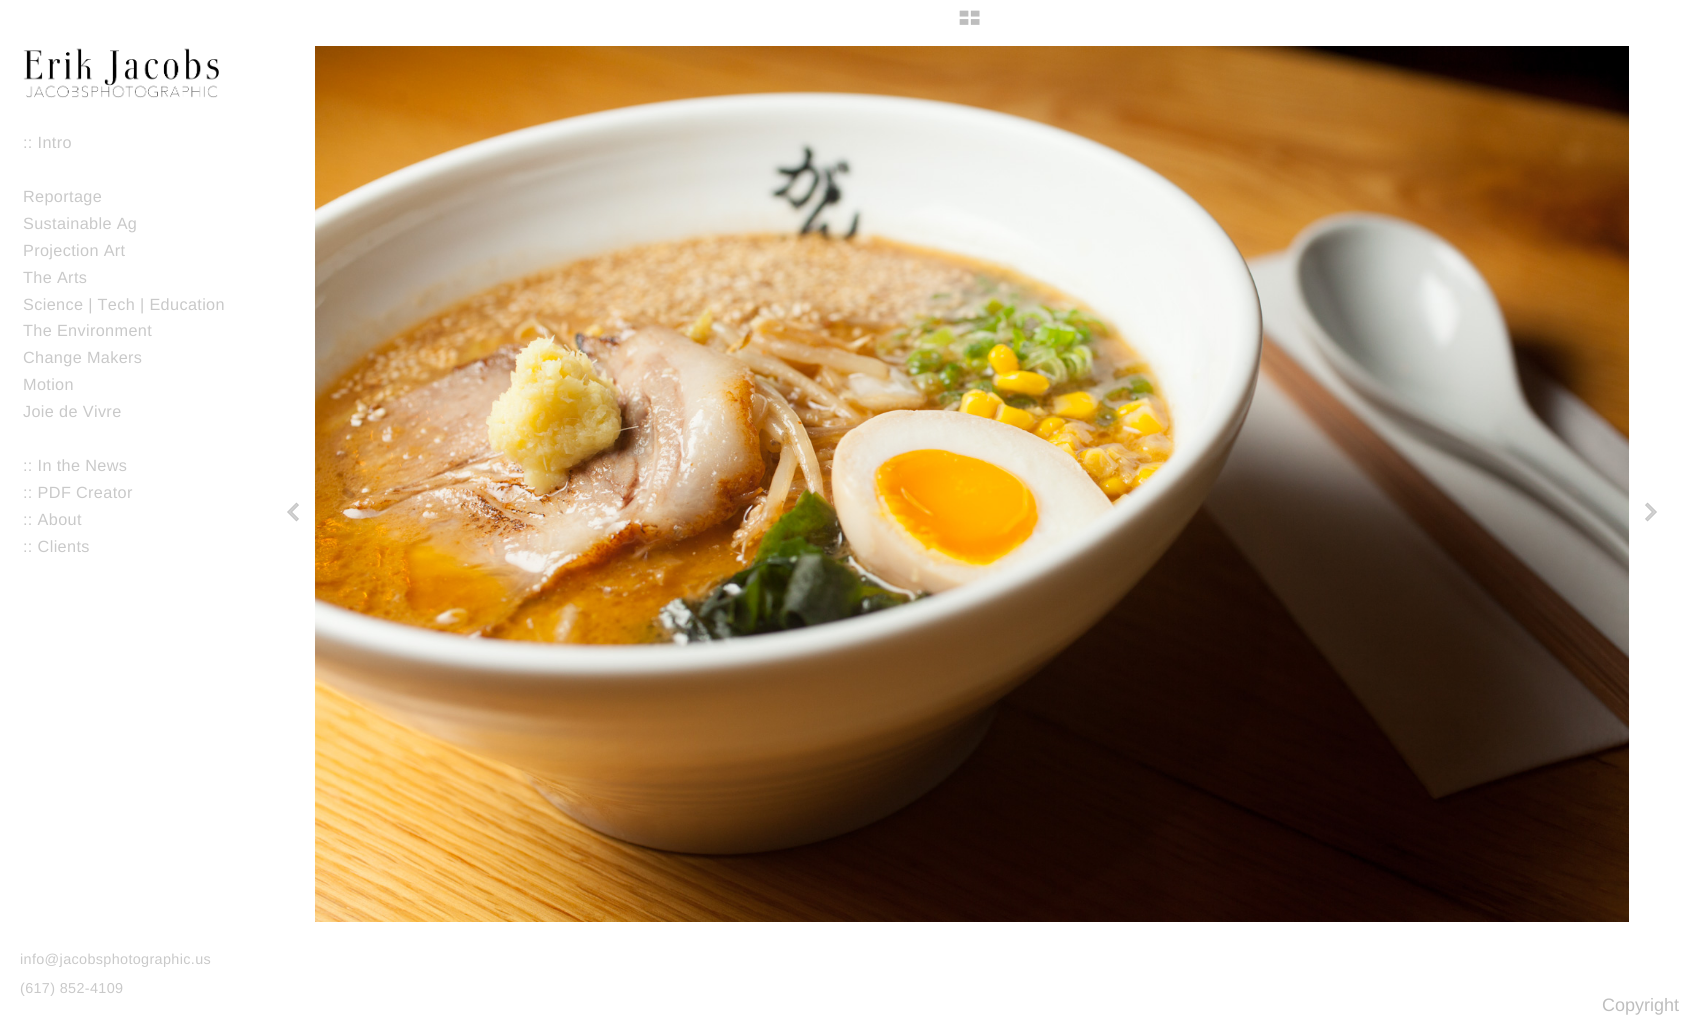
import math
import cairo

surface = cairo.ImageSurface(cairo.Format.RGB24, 1689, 1023)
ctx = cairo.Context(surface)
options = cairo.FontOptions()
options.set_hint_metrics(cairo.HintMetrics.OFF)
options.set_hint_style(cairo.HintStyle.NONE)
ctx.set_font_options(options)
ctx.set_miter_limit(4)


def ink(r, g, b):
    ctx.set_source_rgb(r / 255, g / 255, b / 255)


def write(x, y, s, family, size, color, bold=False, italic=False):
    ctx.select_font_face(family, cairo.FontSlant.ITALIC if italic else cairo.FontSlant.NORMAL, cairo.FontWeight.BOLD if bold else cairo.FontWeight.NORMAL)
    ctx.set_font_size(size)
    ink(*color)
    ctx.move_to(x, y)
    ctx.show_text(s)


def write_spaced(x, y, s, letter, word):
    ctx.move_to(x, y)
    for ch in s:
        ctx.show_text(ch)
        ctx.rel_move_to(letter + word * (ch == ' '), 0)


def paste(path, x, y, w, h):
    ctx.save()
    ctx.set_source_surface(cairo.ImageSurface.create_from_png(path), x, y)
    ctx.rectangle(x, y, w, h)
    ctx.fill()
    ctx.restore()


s1 = dict(family="Liberation Sans", size=18, color=(190, 190, 190))

ink(255, 255, 255)
ctx.paint()
paste("pic1.png", 959, 10, 21, 15)
paste("pic2.png", 23, 48, 196, 50)
ctx.select_font_face("Liberation Sans")
ctx.set_font_size(16.25)
ink(201, 201, 201)
write_spaced(23, 148, ":: Intro", 0.35, 0)
write_spaced(23, 202, "Reportage", 0.35, 0)
write_spaced(23, 229, "Sustainable Ag", 0.35, 0)
write_spaced(23, 256, "Projection Art", 0.35, 0)
write_spaced(23, 283, "The Arts", 0.35, 0)
write_spaced(23, 310, "Science | Tech | Education", 0.35, 0)
write_spaced(23, 336, "The Environment", 0.35, 0)
write_spaced(23, 363, "Change Makers", 0.35, 0)
write_spaced(23, 390, "Motion", 0.35, 0)
write_spaced(23, 417, "Joie de Vivre", 0.35, 0)
write_spaced(23, 471, ":: In the News", 0.35, 0)
write_spaced(23, 498, ":: PDF Creator", 0.35, 0)
write_spaced(23, 525, ":: About", 0.35, 0)
write_spaced(23, 552, ":: Clients", 0.35, 0)
ctx.set_font_size(14.4)
write_spaced(20, 964, "info@jacobsphotographic.us", 0.35, 0)
write_spaced(20, 993, "(617) 852-4109", 0.35, 0)
paste("pic3.png", 287, 502, 12, 20)
paste("pic4.png", 315, 46, 1314, 876)
paste("pic5.png", 1645, 502, 12, 20)
write(1602, 1011, "Copyright", **s1)
surface.write_to_png("screenshot.png")
